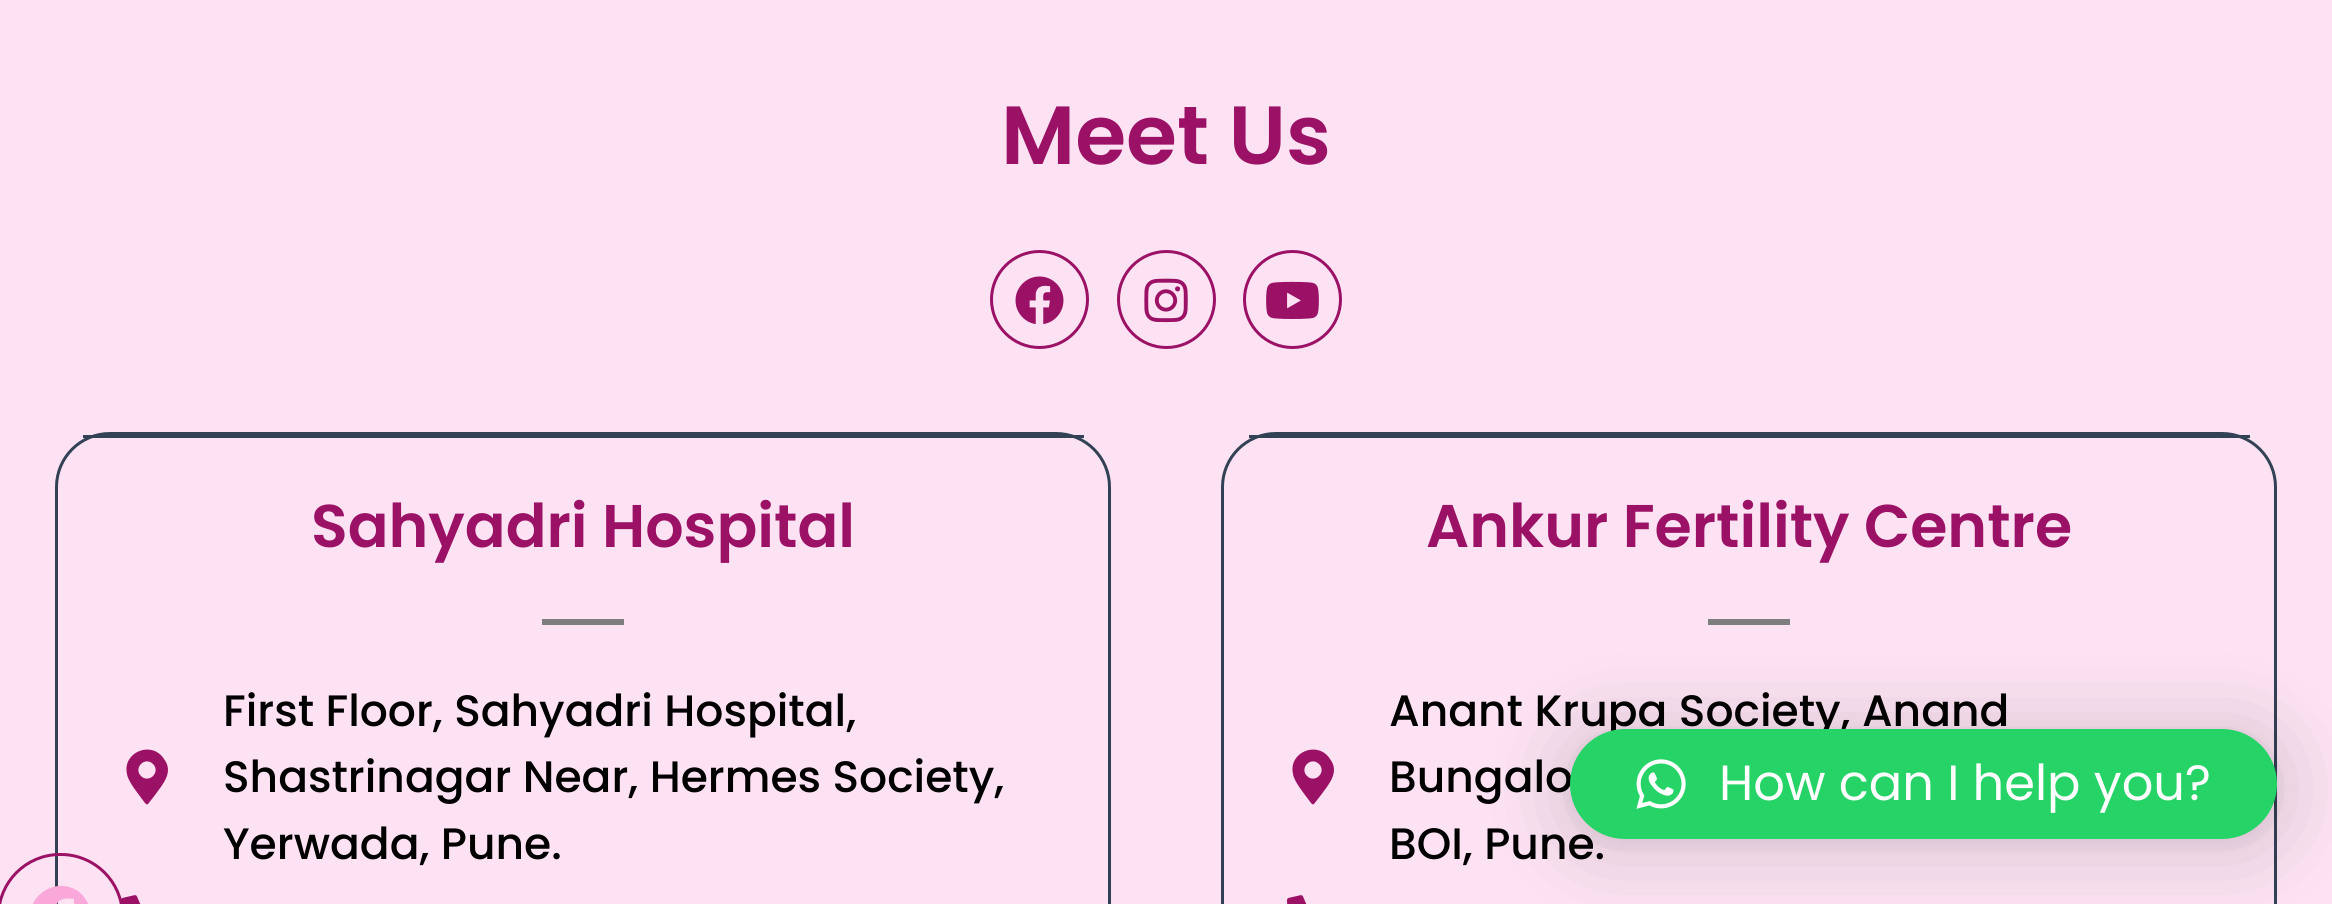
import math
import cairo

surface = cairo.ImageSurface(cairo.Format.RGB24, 2332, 904)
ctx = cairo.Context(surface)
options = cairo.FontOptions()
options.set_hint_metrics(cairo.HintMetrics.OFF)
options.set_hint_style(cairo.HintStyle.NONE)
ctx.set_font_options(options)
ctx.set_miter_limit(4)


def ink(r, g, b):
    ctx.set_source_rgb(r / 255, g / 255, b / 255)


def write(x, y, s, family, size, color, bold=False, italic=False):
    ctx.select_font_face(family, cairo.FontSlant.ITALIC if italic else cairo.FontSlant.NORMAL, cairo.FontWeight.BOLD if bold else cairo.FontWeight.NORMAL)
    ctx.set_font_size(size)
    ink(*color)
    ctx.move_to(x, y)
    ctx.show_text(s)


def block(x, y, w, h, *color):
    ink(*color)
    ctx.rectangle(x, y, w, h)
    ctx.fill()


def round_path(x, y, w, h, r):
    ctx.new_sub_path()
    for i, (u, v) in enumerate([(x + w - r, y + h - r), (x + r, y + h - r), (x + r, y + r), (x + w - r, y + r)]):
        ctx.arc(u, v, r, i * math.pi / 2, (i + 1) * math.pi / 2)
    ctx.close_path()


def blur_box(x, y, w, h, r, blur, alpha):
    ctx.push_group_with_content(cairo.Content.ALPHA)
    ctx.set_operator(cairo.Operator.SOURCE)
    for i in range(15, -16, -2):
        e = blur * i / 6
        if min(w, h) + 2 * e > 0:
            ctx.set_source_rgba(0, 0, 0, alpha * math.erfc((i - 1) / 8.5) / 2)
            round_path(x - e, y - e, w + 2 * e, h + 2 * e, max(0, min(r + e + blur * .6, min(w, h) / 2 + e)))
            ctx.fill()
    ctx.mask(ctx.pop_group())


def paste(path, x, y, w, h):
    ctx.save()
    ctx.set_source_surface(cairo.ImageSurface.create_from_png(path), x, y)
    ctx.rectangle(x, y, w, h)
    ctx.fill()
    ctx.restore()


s1 = dict(family="Poppins SemiBold", size=82.5, color=(155, 17, 101))
s2 = dict(family="Poppins SemiBold", size=60.25, color=(155, 17, 101))
s3 = dict(family="Poppins Medium", size=44, color=(0, 0, 0))
s4 = dict(family="Poppins", size=49.5, color=(255, 255, 255))

ink(252, 226, 242)
ctx.paint()
write(1001, 164, "Meet Us", **s1)
ctx.new_path()
ctx.arc(1039.5, 299.5, 48, 0, 2 * math.pi)
ctx.set_line_width(3)
ctx.stroke()
paste("pic1.png", 1015, 276, 49, 49)
ctx.arc(1166.5, 299.5, 48, 0, 2 * math.pi)
ctx.stroke()
paste("pic2.png", 1144, 278, 44, 45)
ctx.arc(1292.5, 299.5, 48, 0, 2 * math.pi)
ctx.stroke()
paste("pic3.png", 1266, 281, 53, 38)
round_path(56.5, 433.5, 1053, 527, 53.5)
ink(51, 65, 85)
ctx.stroke()
block(83, 435, 1001, 3, 51, 65, 85)
write(311, 547, "Sahyadri Hospital", **s2)
block(542, 619, 82, 6, 126, 126, 126)
ink(155, 17, 101)
ctx.new_path()
ctx.move_to(145, 803)
ctx.curve_to(140, 796, 128, 782, 127, 774)
ctx.curve_to(122, 752, 152, 740, 164, 759)
ctx.curve_to(174, 772, 163, 784, 155, 795)
ctx.line_to(148, 804)
ctx.curve_to(147, 805, 146, 804, 145, 803)
ctx.close_path()
ctx.move_to(141, 776)
ctx.curve_to(149, 784, 161, 772, 153, 764)
ctx.curve_to(145, 756, 133, 768, 141, 776)
ctx.close_path()
ctx.fill()
write(223, 726, "First Floor, Sahyadri Hospital,", **s3)
write(223, 792, "Shastrinagar Near, Hermes Society,", **s3)
write(223, 859, "Yerwada, Pune.", **s3)
paste("pic4.png", 121, 895, 20, 9)
round_path(1222.5, 433.5, 1053, 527, 53.5)
ink(51, 65, 85)
ctx.stroke()
block(1249, 435, 1001, 3, 51, 65, 85)
write(1426, 547, "Ankur Fertility Centre", **s2)
block(1708, 619, 82, 6, 126, 126, 126)
ink(155, 17, 101)
ctx.new_path()
ctx.move_to(1311, 803)
ctx.curve_to(1306, 796, 1294, 782, 1293, 774)
ctx.curve_to(1288, 752, 1318, 740, 1330, 759)
ctx.curve_to(1340, 772, 1329, 784, 1321, 795)
ctx.line_to(1314, 804)
ctx.curve_to(1313, 805, 1312, 804, 1311, 803)
ctx.close_path()
ctx.move_to(1307, 776)
ctx.curve_to(1315, 784, 1327, 772, 1319, 764)
ctx.curve_to(1311, 756, 1299, 768, 1307, 776)
ctx.close_path()
ctx.fill()
write(1389, 726, "Anant Krupa Society, Anand", **s3)
write(1389, 792, "Bungalo", **s3)
write(1389, 859, "BOI, Pune.", **s3)
paste("pic4.png", 1287, 895, 20, 9)
round_path(-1.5, 854.5, 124, 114, 61.5)
ink(155, 17, 101)
ctx.stroke()
ink(250, 168, 218)
ctx.new_path()
ctx.move_to(91, 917)
ctx.curve_to(91, 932, 80, 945, 65, 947)
ctx.line_to(65, 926)
ctx.line_to(72, 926)
ctx.line_to(74, 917)
ctx.line_to(65, 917)
ctx.curve_to(65, 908, 65, 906, 74, 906)
ctx.line_to(74, 899)
ctx.curve_to(67, 898, 58, 898, 56, 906)
ctx.line_to(56, 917)
ctx.line_to(48, 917)
ctx.line_to(48, 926)
ctx.line_to(56, 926)
ctx.line_to(56, 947)
ctx.curve_to(49, 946, 42, 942, 37, 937)
ctx.curve_to(14, 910, 48, 872, 78, 891)
ctx.curve_to(86, 897, 91, 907, 91, 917)
ctx.close_path()
ctx.fill()
ink(0, 0, 0)
blur_box(1570, 734, 707, 110, 55, 44, 0.16)
blur_box(1570, 732, 707, 110, 55, 8, 0.06)
ink(37, 211, 102)
round_path(1570, 729, 707, 110, 55)
ctx.fill()
paste("pic5.png", 1636, 759, 50, 50)
write(1719, 800, "How can I help you?", **s4)
surface.write_to_png("screenshot.png")
